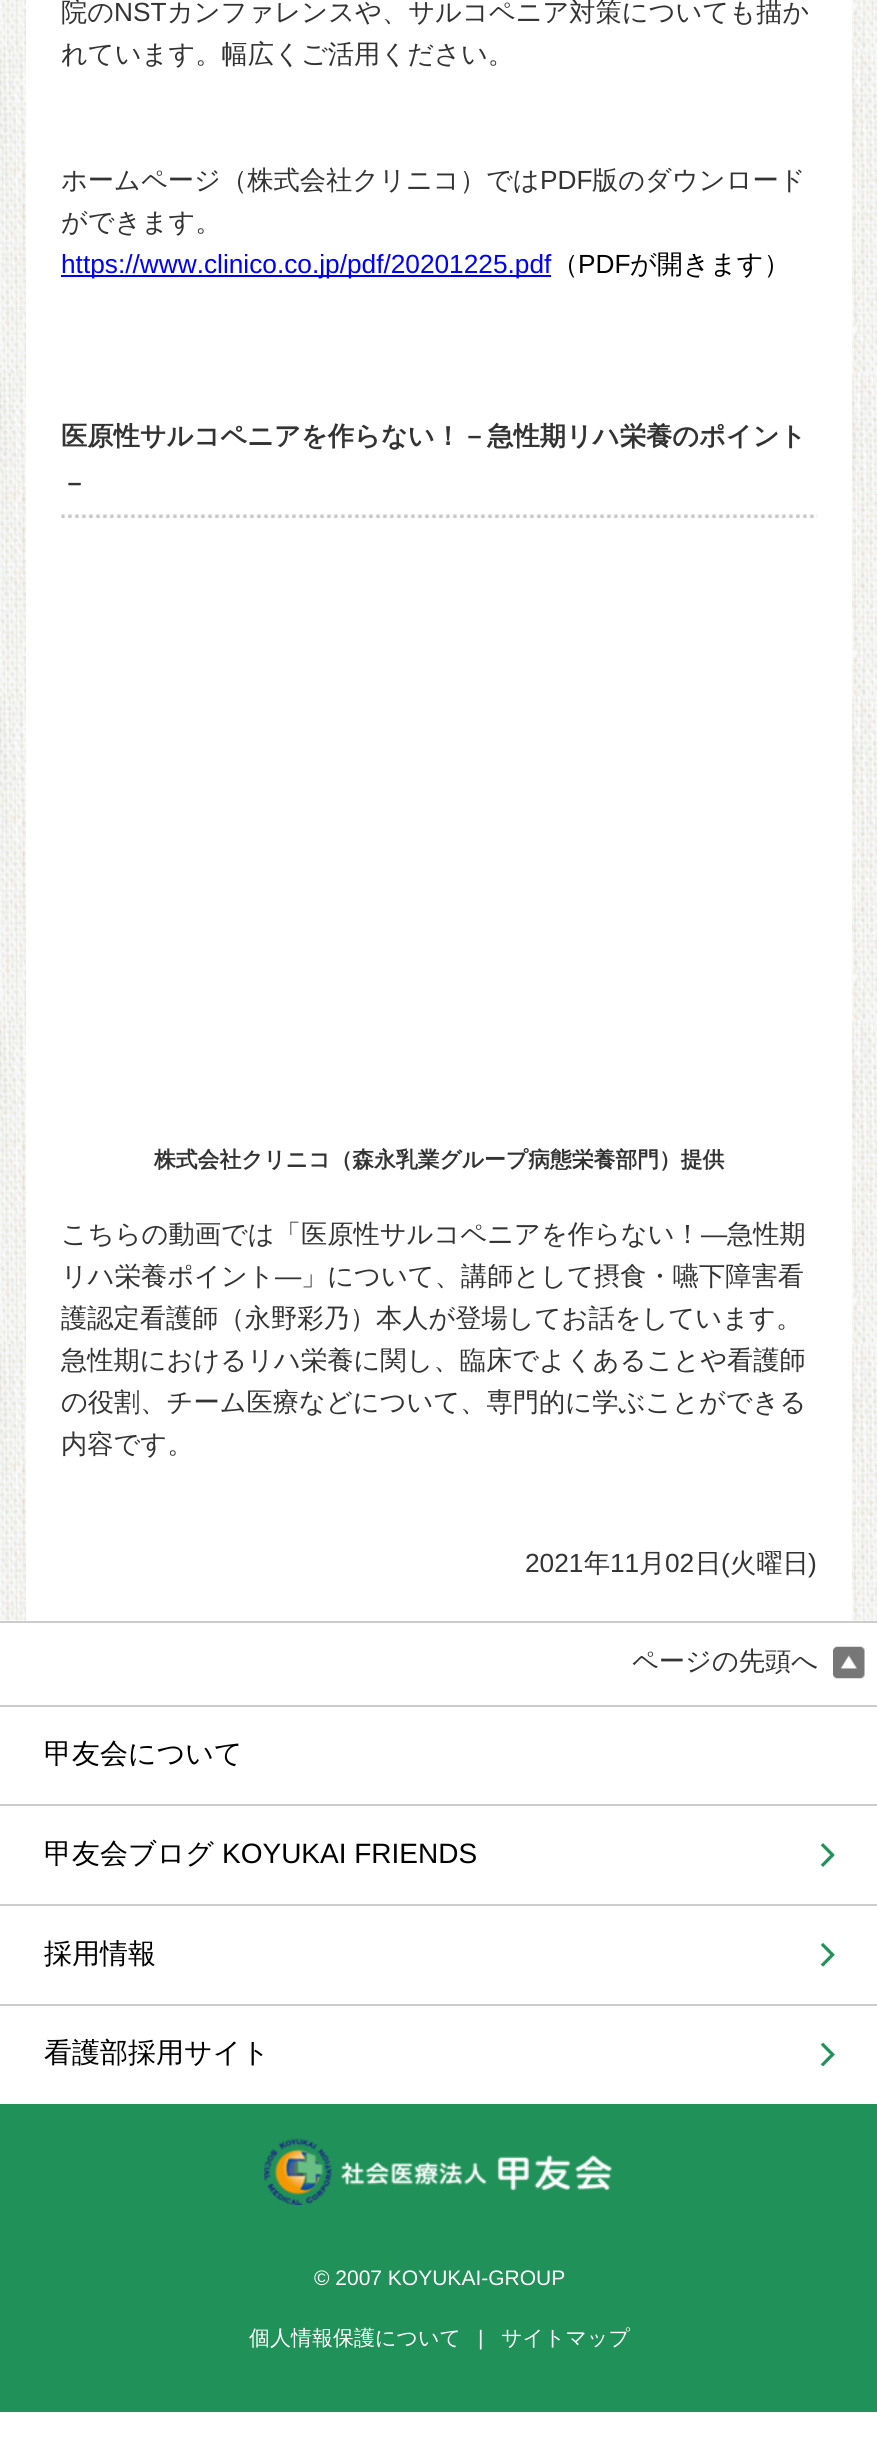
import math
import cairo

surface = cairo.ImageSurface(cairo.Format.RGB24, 877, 2452)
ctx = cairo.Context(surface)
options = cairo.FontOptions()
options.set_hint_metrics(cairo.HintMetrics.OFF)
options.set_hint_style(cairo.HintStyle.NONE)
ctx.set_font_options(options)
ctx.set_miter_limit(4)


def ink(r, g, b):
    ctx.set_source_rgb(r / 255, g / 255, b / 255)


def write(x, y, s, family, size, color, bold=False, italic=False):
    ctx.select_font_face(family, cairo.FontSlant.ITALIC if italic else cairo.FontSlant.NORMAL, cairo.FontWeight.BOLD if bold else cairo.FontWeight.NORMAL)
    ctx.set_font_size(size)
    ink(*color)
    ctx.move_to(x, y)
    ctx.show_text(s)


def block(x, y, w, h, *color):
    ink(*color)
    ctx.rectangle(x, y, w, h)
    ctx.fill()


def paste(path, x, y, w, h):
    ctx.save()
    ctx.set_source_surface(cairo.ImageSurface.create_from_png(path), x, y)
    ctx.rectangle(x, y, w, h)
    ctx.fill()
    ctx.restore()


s1 = dict(family="WenQuanYi Zen Hei Medium", size=26.25, color=(51, 51, 51))
s2 = dict(family="Liberation Sans", size=26.25, color=(51, 51, 51))
s3 = dict(family="Liberation Sans", size=26.25, color=(0, 0, 255))
s4 = dict(family="WenQuanYi Zen Hei Medium", size=26.25, color=(0, 0, 0))
s5 = dict(family="Liberation Sans", size=26.25, color=(0, 0, 0))
s6 = dict(family="WenQuanYi Zen Hei", size=26.25, color=(51, 51, 51), bold=True)
s7 = dict(family="WenQuanYi Zen Hei", size=21.8, color=(51, 51, 51), bold=True)
s8 = dict(family="WenQuanYi Zen Hei Medium", size=28, color=(0, 0, 0))
s9 = dict(family="Liberation Sans", size=28, color=(0, 0, 0))
s10 = dict(family="Liberation Sans", size=21, color=(255, 255, 255))
s11 = dict(family="WenQuanYi Zen Hei Medium", size=21, color=(255, 255, 255))

ink(255, 255, 255)
ctx.paint()
paste("pic1.png", 0, 0, 877, 1621)
block(26, 0, 826, 1621, 255, 255, 255)
write(61, 21, "院の", **s1)
write(114, 21, "NST", **s2)
write(167, 21, "カンファレンスや、サルコペニア対策についても描か", **s1)
write(61, 63, "れています。幅広くご活用ください。", **s1)
write(61, 189, "ホームページ（株式会社クリニコ）では", **s1)
write(540, 189, "PDF", **s2)
write(592, 189, "版のダウンロード", **s1)
write(61, 231, "ができます。", **s1)
block(61, 275, 490, 2, 0, 0, 255)
write(61, 273, "https://www.clinico.co.jp/pdf/20201225.pdf", **s3)
write(552, 273, "（", **s4)
write(578, 273, "PDF", **s5)
write(630, 273, "が開きます）", **s4)
paste("pic2.png", 61, 514, 757, 4)
write(61, 445, "医原性サルコペニアを作らない！－急性期リハ栄養のポイント", **s6)
write(61, 492, "－", **s6)
write(154, 1167, "株式会社クリニコ（森永乳業グループ病態栄養部門）提供", **s7)
write(61, 1243, "こちらの動画では「医原性サルコペニアを作らない！", **s1)
write(701, 1243, "―", **s2)
write(727, 1243, "急性期", **s1)
write(61, 1285, "リハ栄養ポイント", **s1)
write(275, 1285, "―", **s2)
write(301, 1285, "」について、講師として摂食・嚥下障害看", **s1)
write(61, 1327, "護認定看護師（永野彩乃）本人が登場してお話をしています。", **s1)
write(61, 1369, "急性期におけるリハ栄養に関し、臨床でよくあることや看護師", **s1)
write(61, 1411, "の役割、チーム医療などについて、専門的に学ぶことができる", **s1)
write(61, 1453, "内容です。", **s1)
write(525, 1572, "2021", **s2)
write(584, 1572, "年", **s1)
write(610, 1572, "11", **s2)
write(639, 1572, "月", **s1)
write(665, 1572, "02", **s2)
write(695, 1572, "日", **s1)
write(721, 1572, "(", **s2)
write(730, 1572, "火曜日", **s1)
write(808, 1572, ")", **s2)
block(0, 1621, 877, 2, 204, 204, 204)
write(632, 1670, "ページの先頭へ", **s1)
paste("pic3.png", 833, 1646, 32, 33)
block(0, 2104, 877, 308, 32, 145, 89)
block(0, 1705, 877, 2, 204, 204, 204)
write(44, 1763, "甲友会について", **s8)
block(0, 1804, 877, 2, 204, 204, 204)
paste("pic4.png", 820, 1842, 15, 26)
write(44, 1863, "甲友会ブログ", **s8)
write(222, 1863, "KOYUKAI FRIENDS", **s9)
block(0, 1904, 877, 2, 204, 204, 204)
paste("pic5.png", 820, 1942, 15, 25)
write(44, 1963, "採用情報", **s8)
block(0, 2004, 877, 2, 204, 204, 204)
paste("pic6.png", 820, 2042, 15, 25)
write(44, 2062, "看護部採用サイト", **s8)
paste("pic7.png", 264, 2138, 348, 67)
write(314, 2285, "© 2007 KOYUKAI-GROUP", **s10)
write(249, 2345, "個人情報保護について", **s11)
write(478, 2345, "|", **s10)
write(501, 2345, "サイトマップ", **s11)
surface.write_to_png("screenshot.png")
